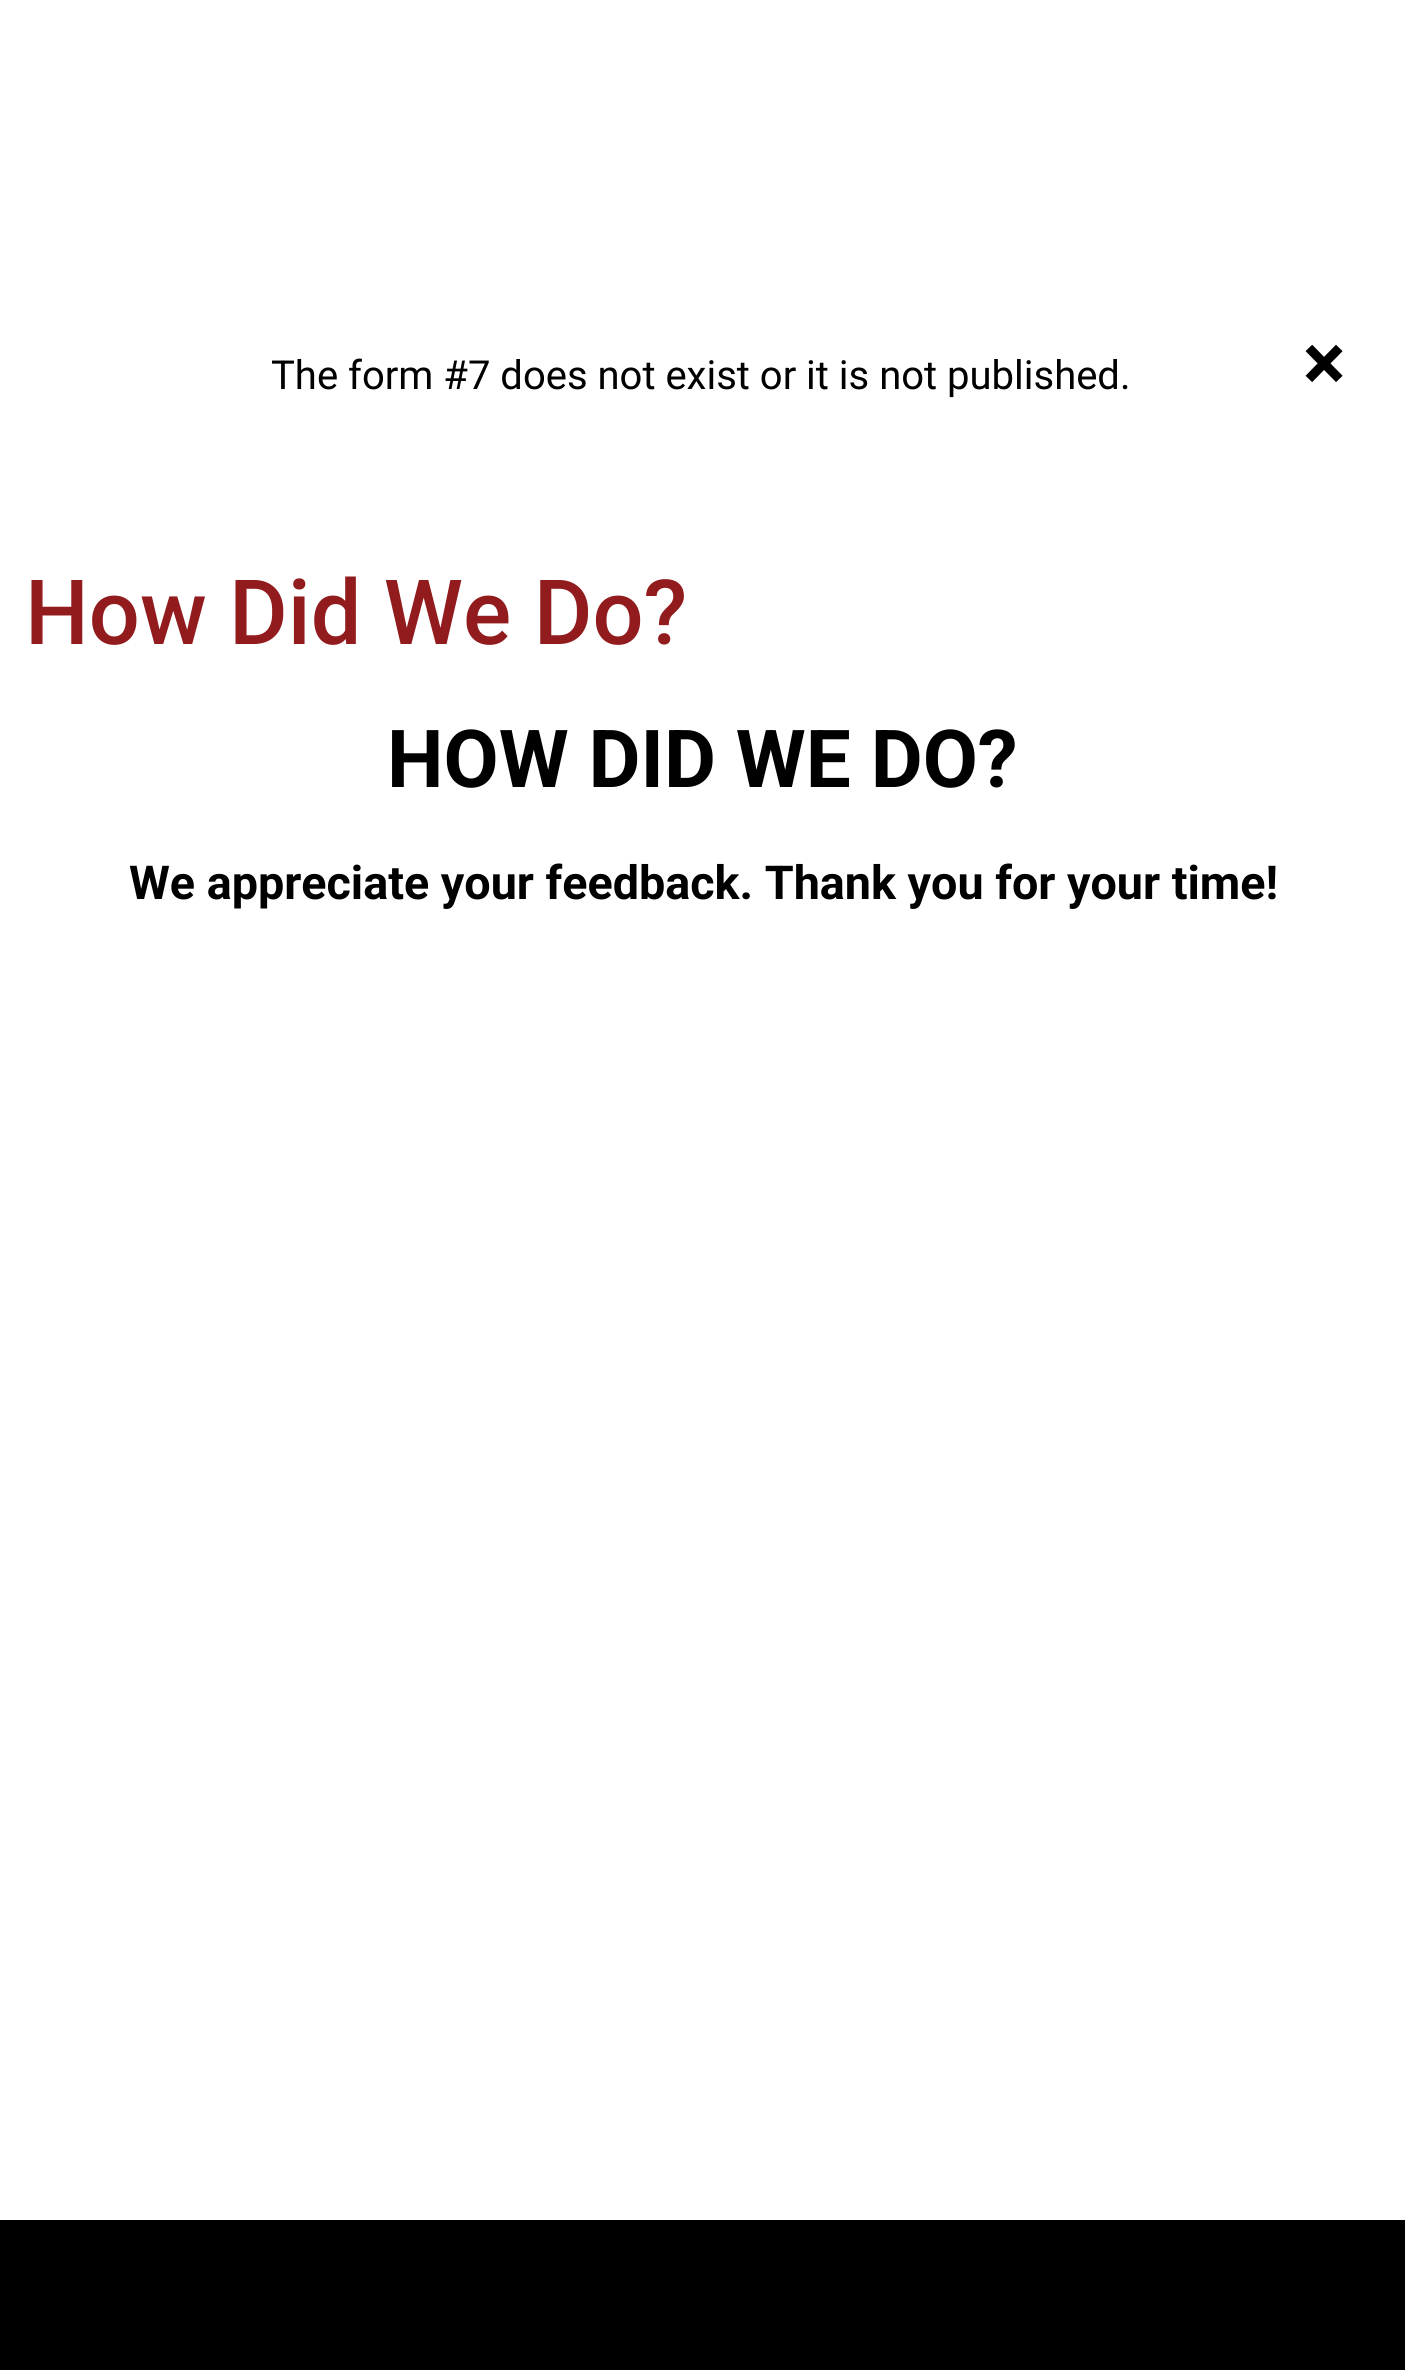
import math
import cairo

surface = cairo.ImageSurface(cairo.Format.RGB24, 1405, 2370)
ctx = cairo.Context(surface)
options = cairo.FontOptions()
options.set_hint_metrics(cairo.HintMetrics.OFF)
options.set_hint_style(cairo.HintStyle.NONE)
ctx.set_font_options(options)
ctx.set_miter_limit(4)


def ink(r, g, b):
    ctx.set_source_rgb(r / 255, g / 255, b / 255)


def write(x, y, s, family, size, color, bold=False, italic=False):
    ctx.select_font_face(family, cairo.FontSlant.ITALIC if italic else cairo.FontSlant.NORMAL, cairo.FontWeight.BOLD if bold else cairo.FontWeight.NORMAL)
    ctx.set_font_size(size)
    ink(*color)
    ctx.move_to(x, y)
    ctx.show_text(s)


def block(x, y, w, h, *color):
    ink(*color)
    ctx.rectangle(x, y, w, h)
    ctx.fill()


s1 = dict(family="Roboto", size=40, color=(0, 0, 0))
s2 = dict(family="Roboto", size=80, color=(0, 0, 0), bold=True)
s3 = dict(family="Roboto Medium", size=90, color=(146, 27, 30))
s4 = dict(family="Roboto", size=46.7, color=(0, 0, 0), bold=True)

ink(255, 255, 255)
ctx.paint()
write(271, 389, "The form #7 does not exist or it is not published.", **s1)
write(1303, 390, "×", **s2)
write(25, 644, "How Did We Do?", **s3)
write(387, 787, "HOW DID WE DO?", **s2)
write(129, 899, "We appreciate your feedback. Thank you for your time!", **s4)
block(0, 2220, 1405, 150, 0, 0, 0)
surface.write_to_png("screenshot.png")
